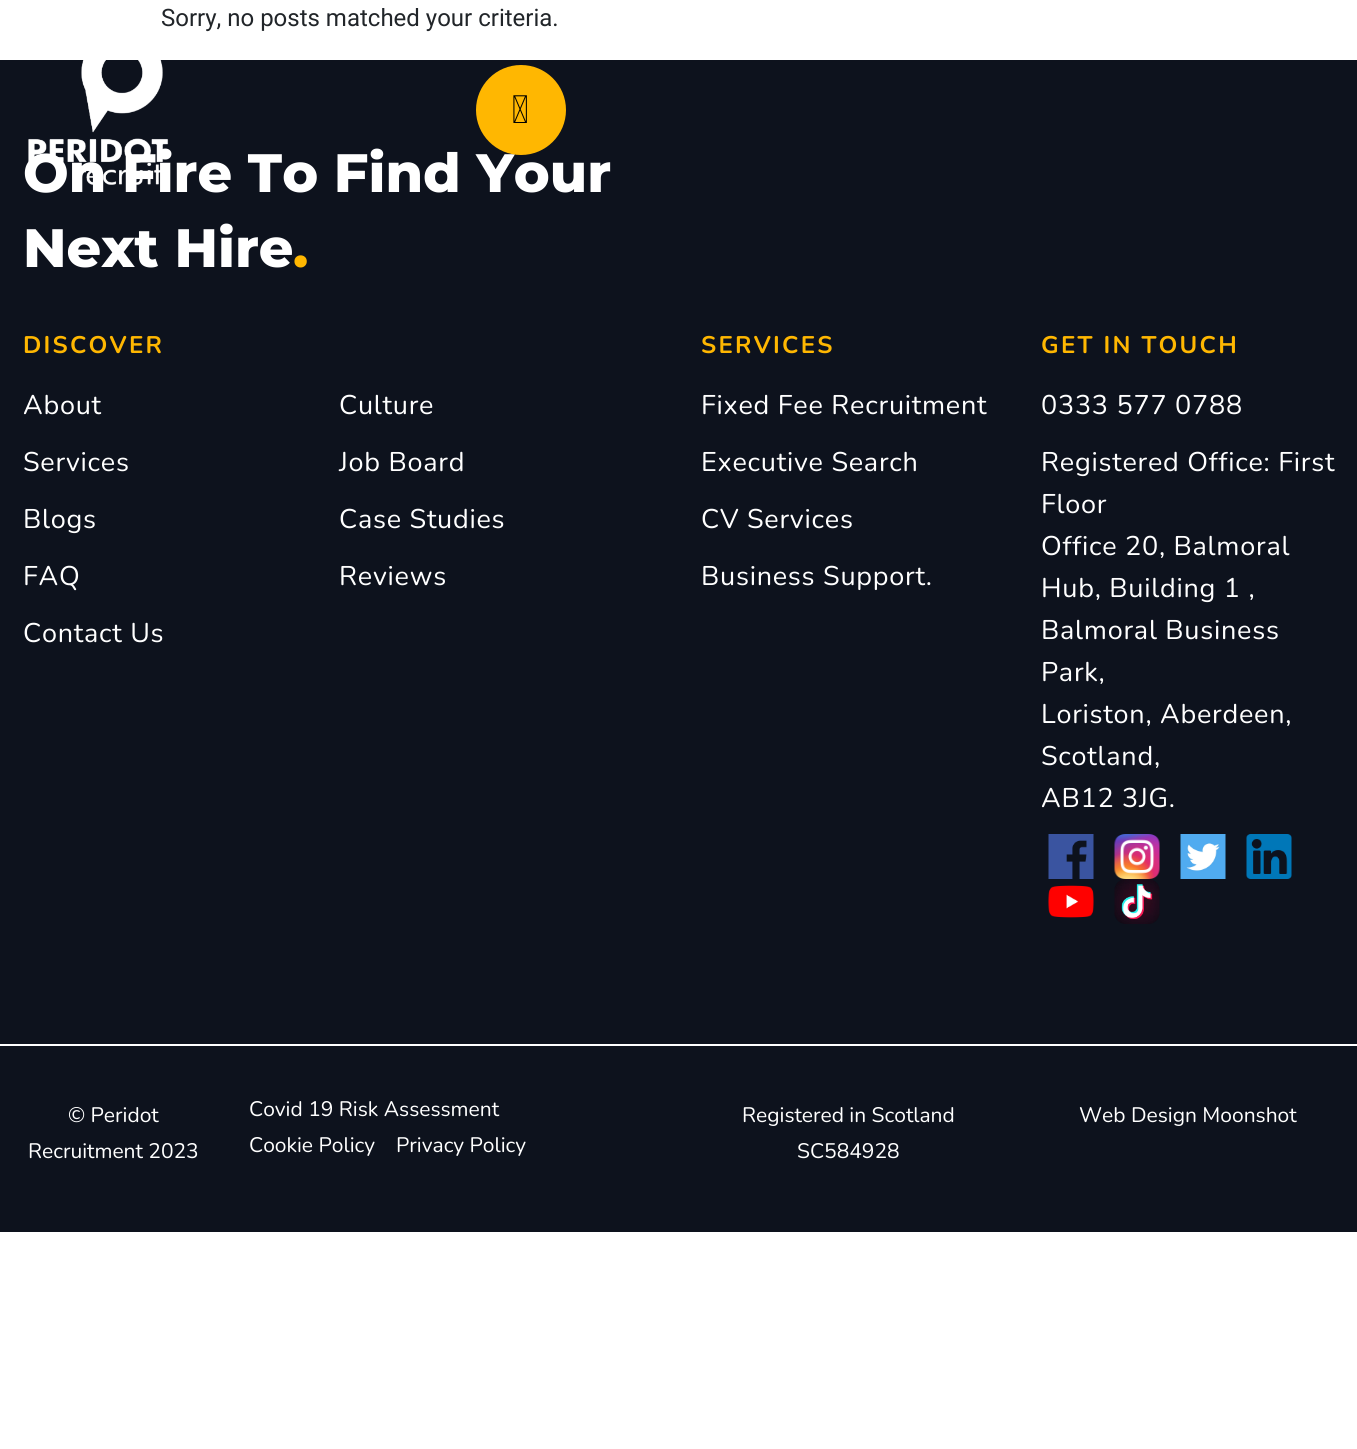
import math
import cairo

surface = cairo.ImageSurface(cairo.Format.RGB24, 1357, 1449)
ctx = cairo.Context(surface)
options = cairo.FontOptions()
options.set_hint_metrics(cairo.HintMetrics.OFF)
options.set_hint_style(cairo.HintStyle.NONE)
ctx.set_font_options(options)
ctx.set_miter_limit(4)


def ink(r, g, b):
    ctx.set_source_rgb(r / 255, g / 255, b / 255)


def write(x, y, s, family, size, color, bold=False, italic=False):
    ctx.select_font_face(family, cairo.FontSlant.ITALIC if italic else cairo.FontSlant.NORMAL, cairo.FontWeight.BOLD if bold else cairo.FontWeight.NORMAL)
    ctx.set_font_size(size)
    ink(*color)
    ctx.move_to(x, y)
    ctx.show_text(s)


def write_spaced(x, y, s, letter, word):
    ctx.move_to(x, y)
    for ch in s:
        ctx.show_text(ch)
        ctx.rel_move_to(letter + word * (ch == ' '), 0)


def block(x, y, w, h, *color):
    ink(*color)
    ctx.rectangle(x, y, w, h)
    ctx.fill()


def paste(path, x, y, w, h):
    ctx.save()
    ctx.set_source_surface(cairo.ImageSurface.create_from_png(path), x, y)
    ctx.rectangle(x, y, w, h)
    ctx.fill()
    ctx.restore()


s1 = dict(family="Roboto", size=24, color=(33, 37, 41))
s2 = dict(family="Montserrat ExtraBold", size=54, color=(255, 255, 255))
s3 = dict(family="Montserrat ExtraBold", size=54, color=(255, 183, 1))
s4 = dict(family="Nunito", size=21, color=(255, 255, 255))

ink(255, 255, 255)
ctx.paint()
write(161, 26, "Sorry, no posts matched your criteria.", **s1)
block(0, 60, 1357, 984, 13, 18, 29)
write(23, 192, "On Fire To Find Your", **s2)
paste("pic1.png", 28, 60, 141, 125)
ink(255, 183, 1)
ctx.arc(521, 110, 45, 0, 2 * math.pi)
ctx.fill()
paste("pic2.png", 513, 95, 14, 28)
write(23, 267, "Next Hire", **s2)
write(293, 267, ".", **s3)
ctx.select_font_face("Nunito", cairo.FontSlant.NORMAL, cairo.FontWeight.BOLD)
ctx.set_font_size(24)
write_spaced(23, 353, "DISCOVER", 2.25, 0)
ctx.select_font_face("Nunito")
ctx.set_font_size(27)
ink(255, 255, 255)
write_spaced(23, 414, "About", 0.75, 0)
write_spaced(339, 414, "Culture", 0.75, 0)
write_spaced(23, 471, "Services", 0.75, 0)
write_spaced(339, 471, "Job Board", 0.75, 0)
write_spaced(23, 528, "Blogs", 0.75, 0)
write_spaced(339, 528, "Case Studies", 0.75, 0)
write_spaced(23, 585, "FAQ", 0.75, 0)
write_spaced(339, 585, "Reviews", 0.75, 0)
write_spaced(23, 642, "Contact Us", 0.75, 0)
ctx.select_font_face("Nunito", cairo.FontSlant.NORMAL, cairo.FontWeight.BOLD)
ctx.set_font_size(24)
ink(255, 183, 1)
write_spaced(701, 353, "SERVICES", 2.25, 0)
ctx.select_font_face("Nunito")
ctx.set_font_size(27)
ink(255, 255, 255)
write_spaced(701, 414, "Fixed Fee Recruitment", 0.75, 0)
write_spaced(701, 471, "Executive Search", 0.75, 0)
write_spaced(701, 528, "CV Services", 0.75, 0)
write_spaced(701, 585, "Business Support.", 0.75, 0)
ctx.select_font_face("Nunito", cairo.FontSlant.NORMAL, cairo.FontWeight.BOLD)
ctx.set_font_size(24)
ink(255, 183, 1)
write_spaced(1041, 353, "GET IN TOUCH", 2.25, 0)
ctx.select_font_face("Nunito")
ctx.set_font_size(27)
ink(255, 255, 255)
write_spaced(1041, 414, "0333 577 0788", 0.75, 0)
write_spaced(1041, 471, "Registered Office: First", 0.75, 0)
write_spaced(1041, 513, "Floor", 0.75, 0)
write_spaced(1041, 555, "Office 20, Balmoral", 0.75, 0)
write_spaced(1041, 597, "Hub, Building 1 ,", 0.75, 0)
write_spaced(1041, 639, "Balmoral Business", 0.75, 0)
write_spaced(1041, 681, "Park,", 0.75, 0)
write_spaced(1041, 723, "Loriston, Aberdeen,", 0.75, 0)
write_spaced(1041, 765, "Scotland,", 0.75, 0)
write_spaced(1041, 807, "AB12 3JG.", 0.75, 0)
paste("pic3.png", 1048, 834, 46, 45)
paste("pic4.png", 1114, 834, 46, 45)
paste("pic5.png", 1180, 834, 46, 45)
paste("pic6.png", 1246, 834, 46, 45)
paste("pic7.png", 1048, 885, 46, 33)
paste("pic8.png", 1114, 879, 46, 45)
block(0, 1046, 1357, 186, 13, 18, 29)
write(68, 1122, "© Peridot", **s4)
write(28, 1158, "Recruitment 2023", **s4)
write(249, 1116, "Covid 19 Risk Assessment", **s4)
write(249, 1152, "Cookie Policy", **s4)
write(396, 1152, "Privacy Policy", **s4)
write(742, 1122, "Registered in Scotland", **s4)
write(797, 1158, "SC584928", **s4)
write(1079, 1122, "Web Design Moonshot", **s4)
surface.write_to_png("screenshot.png")
